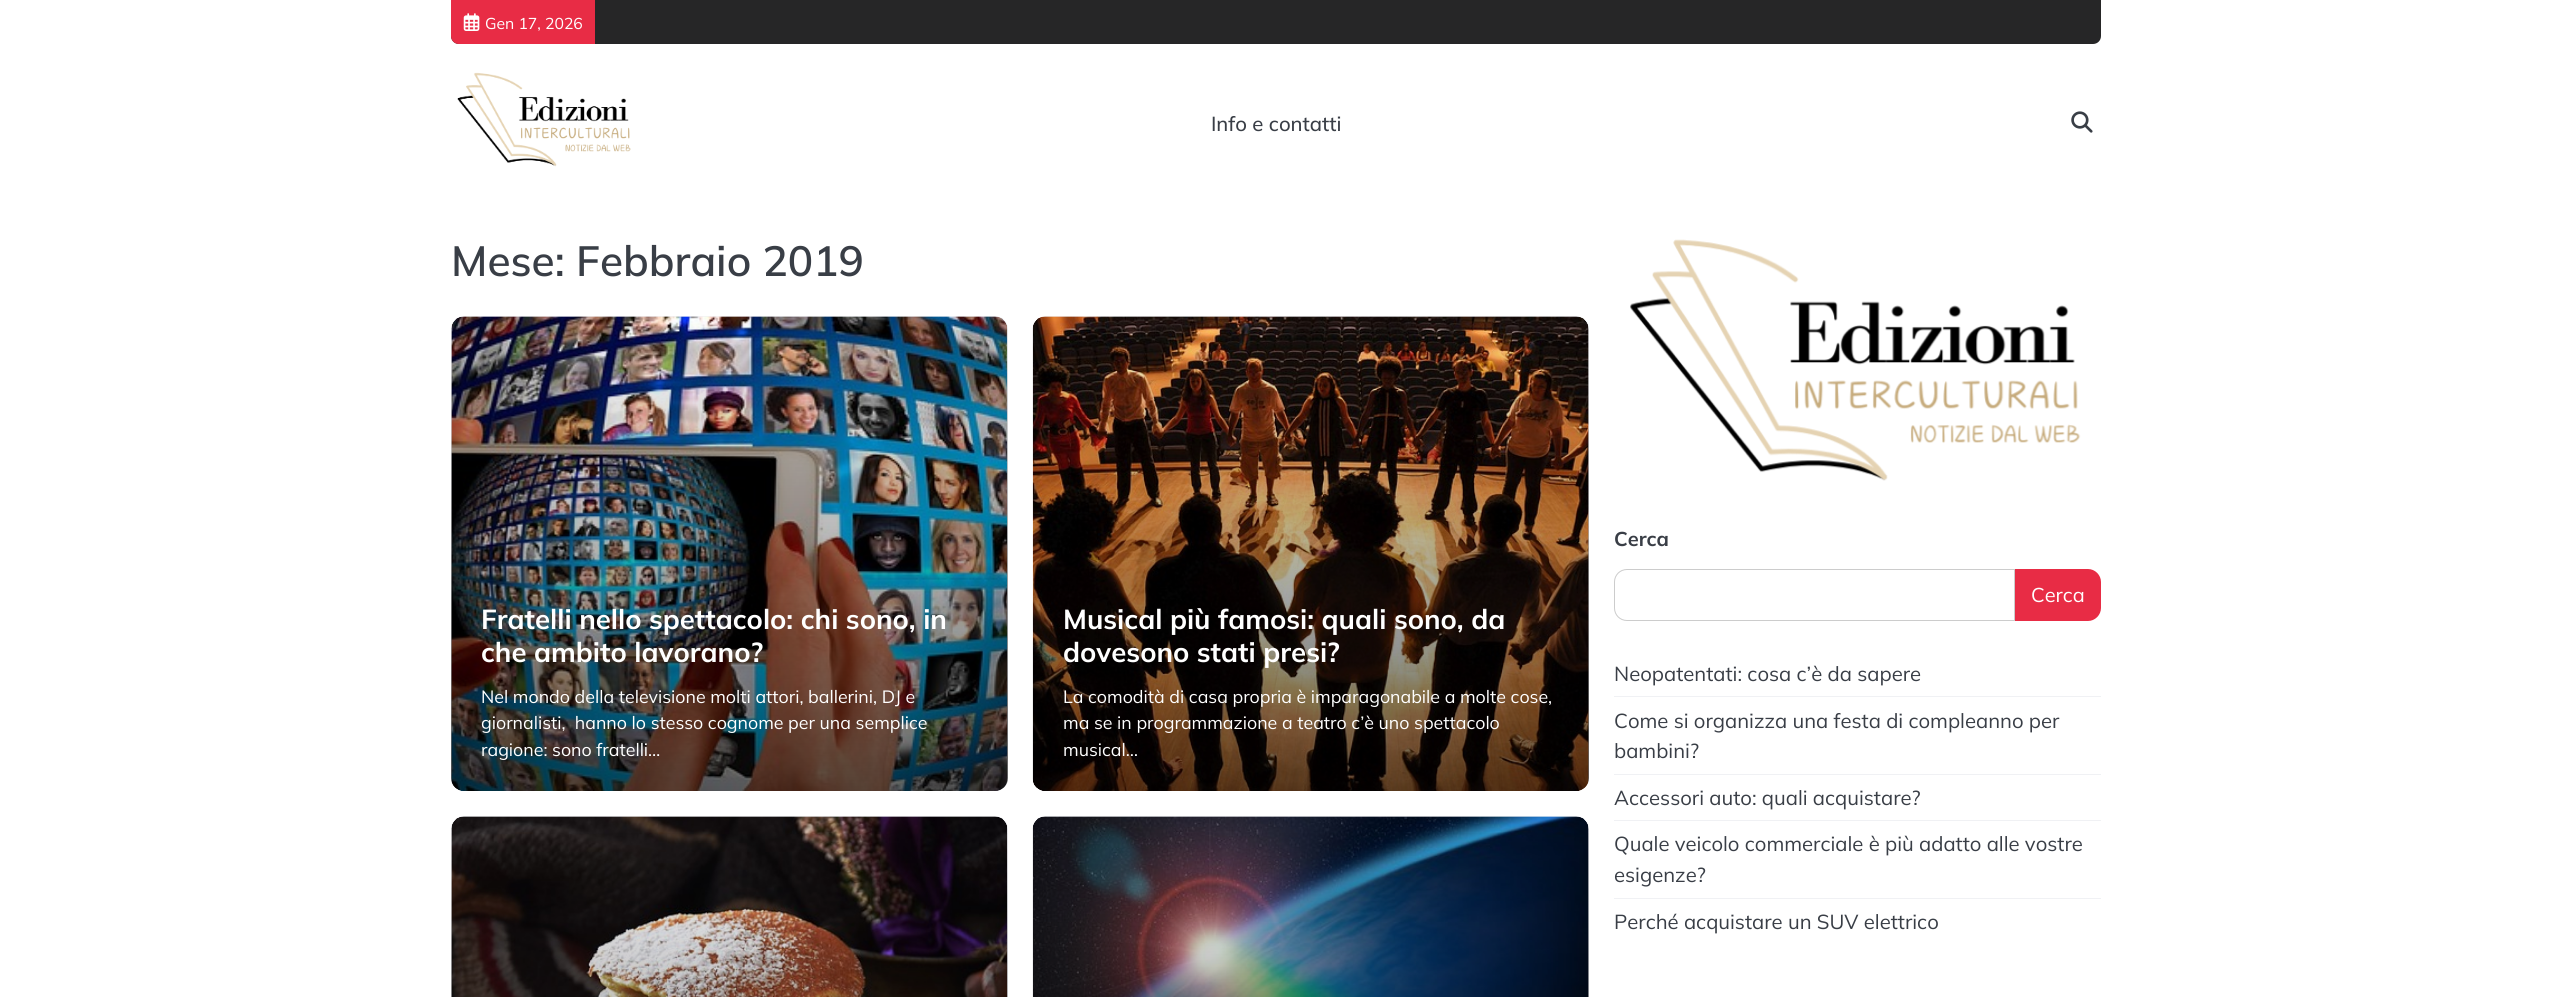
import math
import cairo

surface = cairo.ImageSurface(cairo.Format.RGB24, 2552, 997)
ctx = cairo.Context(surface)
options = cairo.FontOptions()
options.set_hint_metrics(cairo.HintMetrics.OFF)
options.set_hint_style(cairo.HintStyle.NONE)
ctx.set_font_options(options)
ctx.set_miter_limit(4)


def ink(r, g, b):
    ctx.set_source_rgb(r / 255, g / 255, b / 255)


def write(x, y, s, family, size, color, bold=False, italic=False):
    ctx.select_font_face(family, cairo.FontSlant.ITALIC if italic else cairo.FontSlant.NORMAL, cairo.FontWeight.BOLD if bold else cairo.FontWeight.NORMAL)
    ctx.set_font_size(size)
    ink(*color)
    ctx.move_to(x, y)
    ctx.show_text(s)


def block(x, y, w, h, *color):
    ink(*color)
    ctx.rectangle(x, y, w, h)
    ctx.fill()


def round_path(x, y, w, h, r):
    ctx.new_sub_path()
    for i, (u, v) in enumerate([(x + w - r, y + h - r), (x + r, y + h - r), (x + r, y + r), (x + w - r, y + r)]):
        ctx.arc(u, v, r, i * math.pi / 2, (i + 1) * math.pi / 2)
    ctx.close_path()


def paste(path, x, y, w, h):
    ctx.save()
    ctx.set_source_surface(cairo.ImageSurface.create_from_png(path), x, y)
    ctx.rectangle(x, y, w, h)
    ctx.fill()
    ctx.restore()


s1 = dict(family="Mulish", size=15.75, color=(255, 255, 255))
s2 = dict(family="Mulish Medium", size=20.3, color=(57, 62, 70))
s3 = dict(family="Mulish SemiBold", size=42.25, color=(57, 62, 70))
s4 = dict(family="Mulish", size=27.5, color=(255, 255, 255), bold=True)
s5 = dict(family="Mulish", size=17.8, color=(255, 255, 255))
s6 = dict(family="Mulish", size=20, color=(57, 62, 70), bold=True)
s7 = dict(family="Mulish", size=20, color=(255, 255, 255))
s8 = dict(family="Mulish", size=20.3, color=(57, 62, 70))

ink(255, 255, 255)
ctx.paint()
ink(38, 38, 39)
ctx.new_path()
ctx.move_to(451, 0)
ctx.line_to(2101, 0)
ctx.line_to(2101, 36)
ctx.curve_to(2101, 40.5, 2097.5, 44, 2093, 44)
ctx.line_to(459, 44)
ctx.curve_to(454.5, 44, 451, 40.5, 451, 36)
ctx.close_path()
ctx.fill()
ink(232, 44, 69)
ctx.new_path()
ctx.move_to(451, 0)
ctx.line_to(595, 0)
ctx.line_to(595, 44)
ctx.line_to(459, 44)
ctx.curve_to(454.5, 44, 451, 40.5, 451, 36)
ctx.close_path()
ctx.fill()
paste("pic1.png", 463, 13, 17, 18)
write(485, 29, "Gen 17, 2026", **s1)
paste("pic2.png", 457, 72, 174, 95)
write(1211, 131, "Info e contatti", **s2)
paste("pic3.png", 2071, 111, 22, 22)
write(451, 276, "Mese: Febbraio 2019", **s3)
ink(240, 241, 244)
round_path(451, 316, 557, 475, 13)
ctx.fill()
paste("pic4.png", 451, 316, 557, 475)
gradient = cairo.LinearGradient(729, 791, 729, 316)
gradient.add_color_stop_rgba(0, 0, 0, 0, 0.6)
gradient.add_color_stop_rgba(1, 0, 0, 0, 0)
ctx.set_source(gradient)
round_path(451, 316, 557, 475, 13)
ctx.fill()
write(481, 629, "Fratelli nello spettacolo: chi sono, in", **s4)
write(481, 662, "che ambito lavorano?", **s4)
write(481, 703, "Nel mondo della televisione molti attori, ballerini, DJ e", **s5)
write(481, 729, "giornalisti,  hanno lo stesso cognome per una semplice", **s5)
write(481, 756, "ragione: sono fratelli…", **s5)
ink(240, 241, 244)
round_path(1033, 316, 556, 475, 13)
ctx.fill()
paste("pic5.png", 1032, 316, 557, 475)
gradient = cairo.LinearGradient(1311, 791, 1311, 316)
gradient.add_color_stop_rgba(0, 0, 0, 0, 0.6)
gradient.add_color_stop_rgba(1, 0, 0, 0, 0)
ctx.set_source(gradient)
round_path(1033, 316, 556, 475, 13)
ctx.fill()
write(1063, 629, "Musical più famosi: quali sono, da", **s4)
write(1063, 662, "dovesono stati presi?", **s4)
write(1063, 703, "La comodità di casa propria è imparagonabile a molte cose,", **s5)
write(1063, 729, "ma se in programmazione a teatro c’è uno spettacolo", **s5)
write(1063, 756, "musical…", **s5)
ink(240, 241, 244)
round_path(451, 816, 557, 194, 13)
ctx.fill()
paste("pic6.png", 451, 816, 557, 181)
gradient = cairo.LinearGradient(729, 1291, 729, 816)
gradient.add_color_stop_rgba(0, 0, 0, 0, 0.6)
gradient.add_color_stop_rgba(1, 0, 0, 0, 0)
ctx.set_source(gradient)
ctx.rectangle(451, 833, 557, 164)
ctx.fill()
ink(240, 241, 244)
round_path(1033, 816, 556, 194, 13)
ctx.fill()
paste("pic7.png", 1032, 816, 557, 181)
gradient = cairo.LinearGradient(1311, 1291, 1311, 816)
gradient.add_color_stop_rgba(0, 0, 0, 0, 0.6)
gradient.add_color_stop_rgba(1, 0, 0, 0, 0)
ctx.set_source(gradient)
ctx.rectangle(1033, 833, 556, 164)
ctx.fill()
paste("pic8.png", 1630, 239, 451, 242)
write(1614, 546, "Cerca", **s6)
ctx.new_path()
ctx.move_to(1627, 569.5)
ctx.line_to(2014.5, 569.5)
ctx.line_to(2014.5, 620.5)
ctx.line_to(1627, 620.5)
ctx.curve_to(1620, 620.5, 1614.5, 615, 1614.5, 608)
ctx.line_to(1614.5, 582)
ctx.curve_to(1614.5, 575, 1620, 569.5, 1627, 569.5)
ctx.close_path()
ink(204, 204, 204)
ctx.set_line_width(1)
ctx.stroke()
ink(232, 44, 69)
ctx.new_path()
ctx.move_to(2015, 569)
ctx.line_to(2088, 569)
ctx.curve_to(2095, 569, 2101, 575, 2101, 582)
ctx.line_to(2101, 608)
ctx.curve_to(2101, 615, 2095, 621, 2088, 621)
ctx.line_to(2015, 621)
ctx.close_path()
ctx.fill()
write(2031, 602, "Cerca", **s7)
block(1614, 696, 487, 1, 240, 241, 244)
write(1614, 681, "Neopatentati: cosa c’è da sapere", **s8)
block(1614, 774, 487, 1, 240, 241, 244)
write(1614, 728, "Come si organizza una festa di compleanno per", **s8)
write(1614, 758, "bambini?", **s8)
block(1614, 820, 487, 1, 240, 241, 244)
write(1614, 805, "Accessori auto: quali acquistare?", **s8)
block(1614, 898, 487, 1, 240, 241, 244)
write(1614, 851, "Quale veicolo commerciale è più adatto alle vostre", **s8)
write(1614, 882, "esigenze?", **s8)
write(1614, 929, "Perché acquistare un SUV elettrico", **s8)
surface.write_to_png("screenshot.png")
